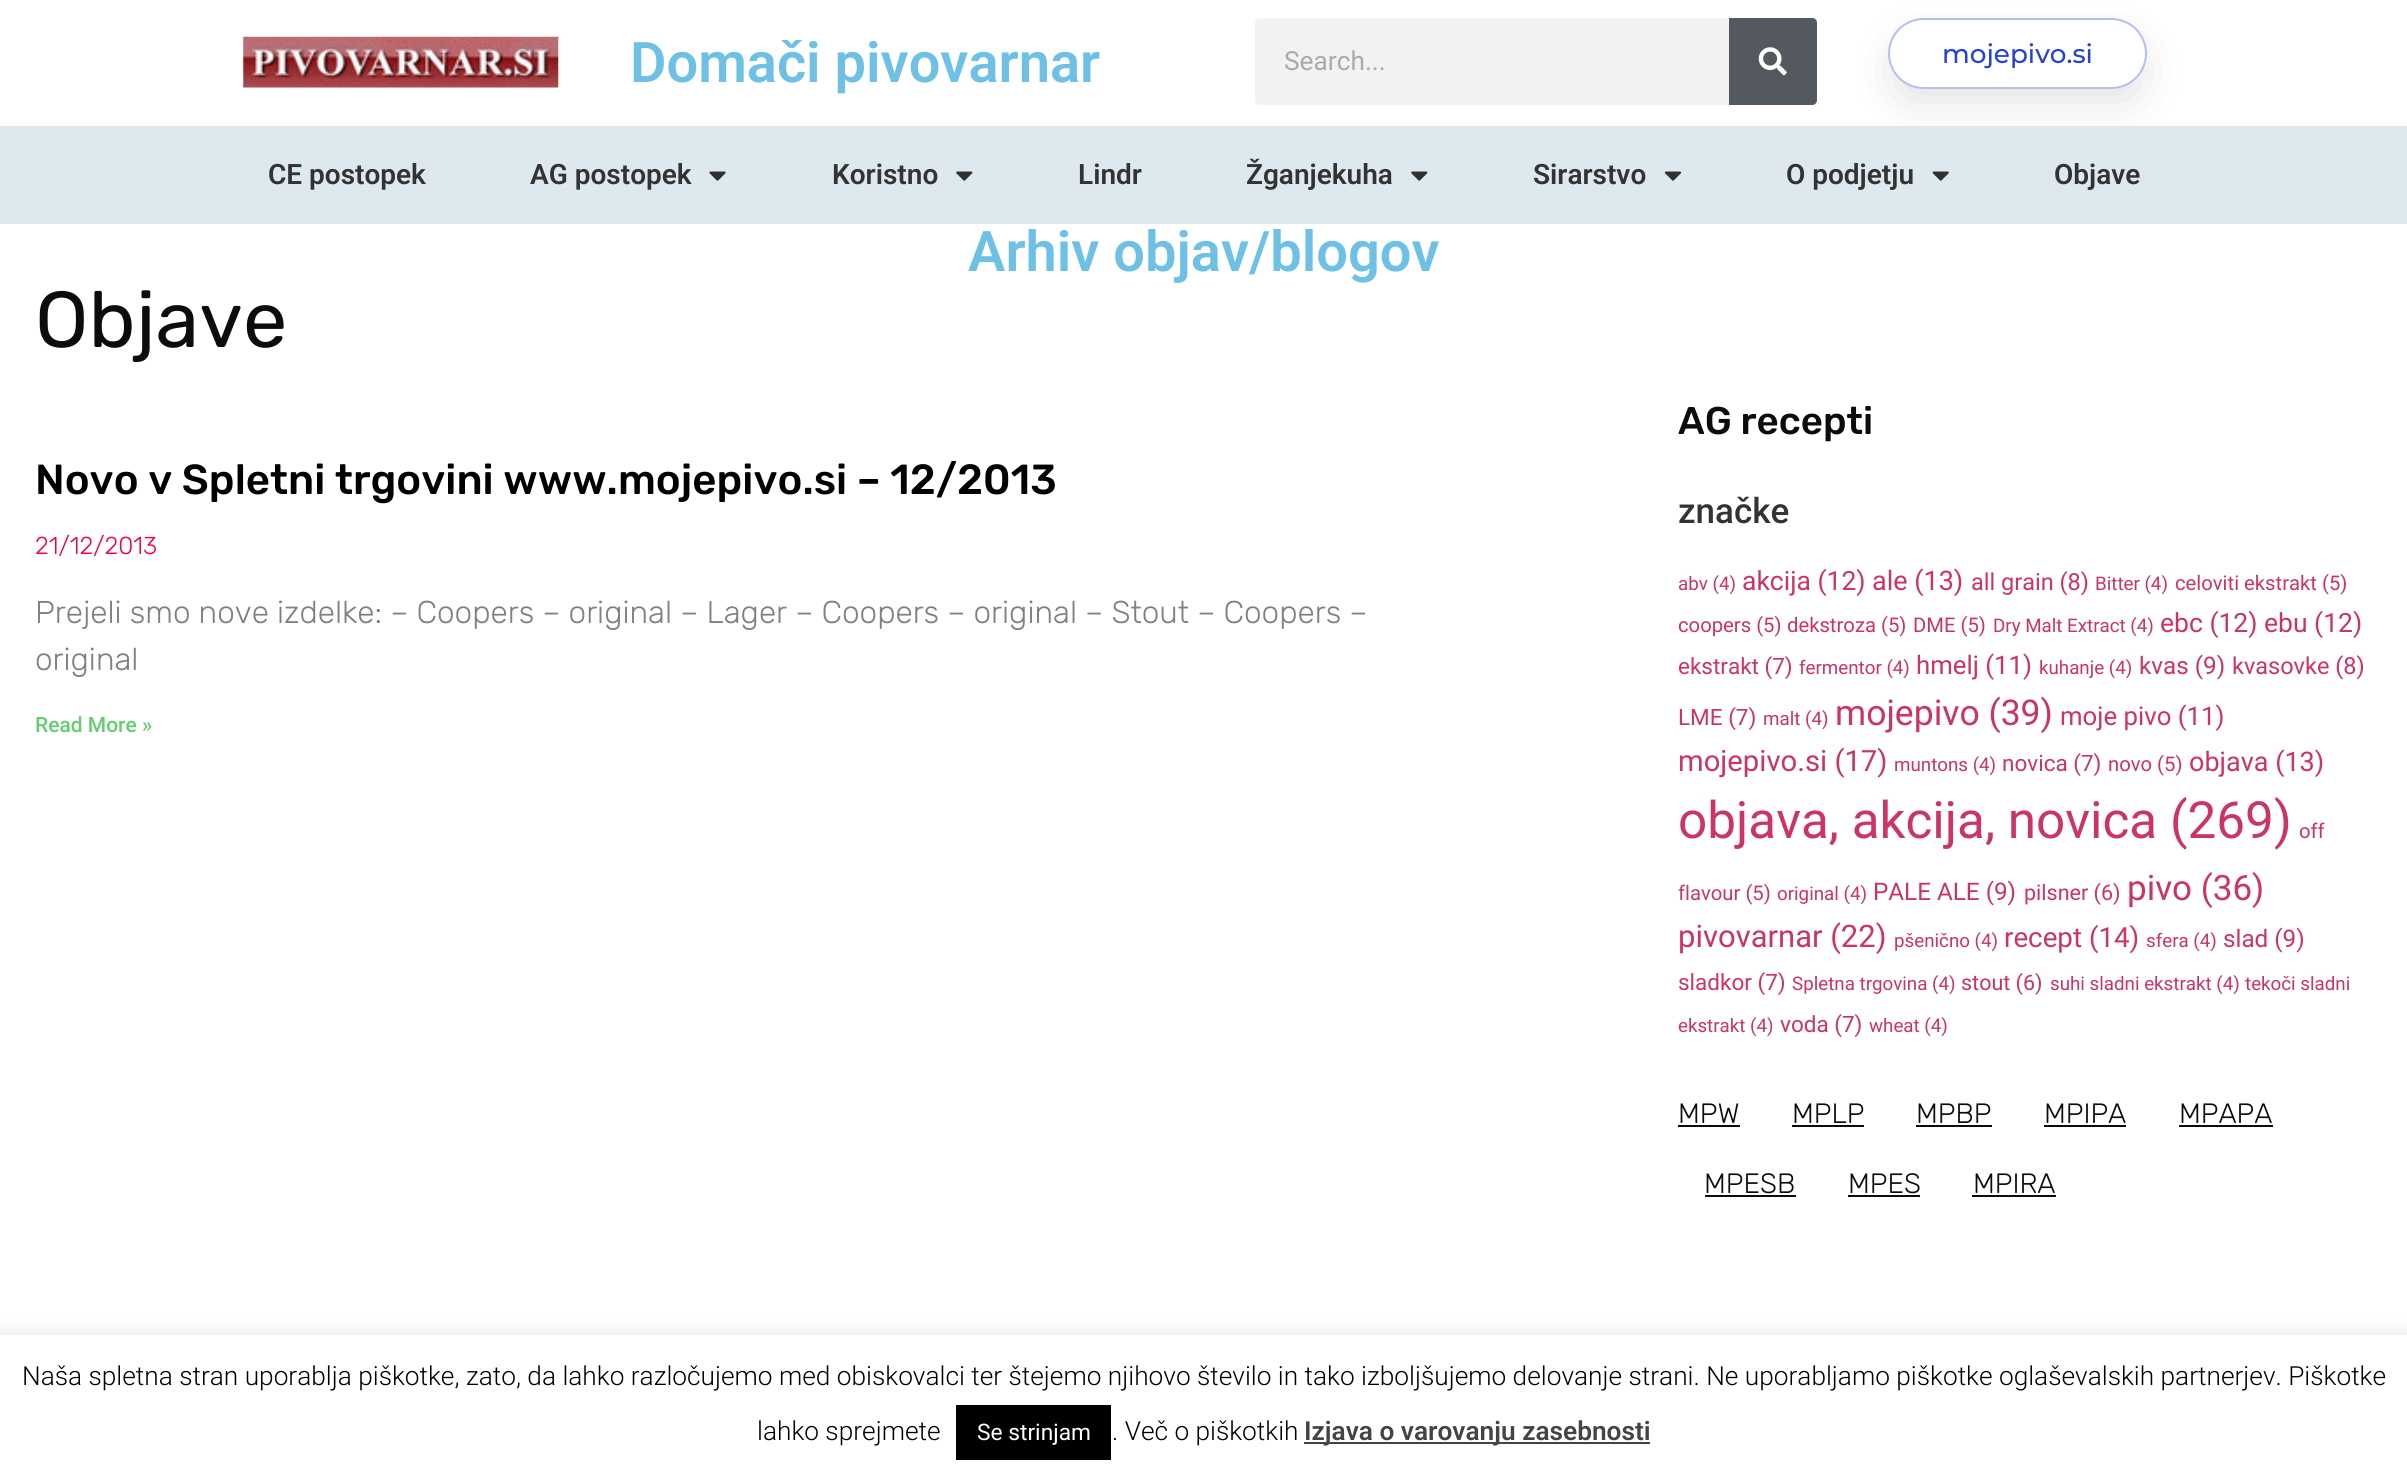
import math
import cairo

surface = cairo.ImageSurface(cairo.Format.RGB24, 2407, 1480)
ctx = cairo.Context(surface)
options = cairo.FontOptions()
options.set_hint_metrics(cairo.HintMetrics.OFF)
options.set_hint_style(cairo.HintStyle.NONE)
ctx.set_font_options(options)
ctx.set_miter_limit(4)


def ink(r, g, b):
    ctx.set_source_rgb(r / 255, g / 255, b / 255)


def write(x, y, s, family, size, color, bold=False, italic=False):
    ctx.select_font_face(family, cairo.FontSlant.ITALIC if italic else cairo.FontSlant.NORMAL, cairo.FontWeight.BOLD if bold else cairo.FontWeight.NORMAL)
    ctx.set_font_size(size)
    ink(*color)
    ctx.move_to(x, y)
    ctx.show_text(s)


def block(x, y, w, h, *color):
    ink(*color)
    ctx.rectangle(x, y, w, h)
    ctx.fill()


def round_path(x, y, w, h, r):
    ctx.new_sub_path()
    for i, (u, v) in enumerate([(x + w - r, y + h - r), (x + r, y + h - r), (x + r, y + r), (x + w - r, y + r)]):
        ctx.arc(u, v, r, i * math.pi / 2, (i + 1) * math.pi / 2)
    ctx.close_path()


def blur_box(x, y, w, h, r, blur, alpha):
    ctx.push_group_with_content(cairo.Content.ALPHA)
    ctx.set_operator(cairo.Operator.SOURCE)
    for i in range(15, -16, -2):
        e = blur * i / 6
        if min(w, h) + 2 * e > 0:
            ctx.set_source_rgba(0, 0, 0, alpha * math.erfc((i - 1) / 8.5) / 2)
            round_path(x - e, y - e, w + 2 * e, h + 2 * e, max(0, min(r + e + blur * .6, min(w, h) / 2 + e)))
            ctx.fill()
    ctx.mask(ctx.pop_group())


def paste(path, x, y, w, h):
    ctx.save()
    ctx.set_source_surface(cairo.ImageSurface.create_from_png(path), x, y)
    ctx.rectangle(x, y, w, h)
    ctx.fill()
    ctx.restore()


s1 = dict(family="Roboto SemiBold", size=56, color=(110, 193, 228))
s2 = dict(family="Roboto", size=26.25, color=(170, 170, 170))
s3 = dict(family="Montserrat Medium", size=26.25, color=(38, 66, 211))
s4 = dict(family="Roboto SemiBold", size=28, color=(51, 51, 51))
s5 = dict(family="Rubik", size=79, color=(12, 12, 12))
s6 = dict(family="Rubik Medium", size=42, color=(0, 0, 0))
s7 = dict(family="Rubik Light", size=24.5, color=(244, 0, 69))
s8 = dict(family="Rubik Light", size=31.5, color=(128, 128, 128))
s9 = dict(family="Roboto Medium", size=21, color=(97, 206, 112))
s10 = dict(family="Rubik Medium", size=38.5, color=(12, 12, 12))
s11 = dict(family="Roboto Medium", size=35, color=(51, 51, 51))
s12 = dict(family="Roboto", size=18.75, color=(204, 51, 102))
s13 = dict(family="Roboto", size=26.5, color=(204, 51, 102))
s14 = dict(family="Roboto", size=27, color=(204, 51, 102))
s15 = dict(family="Roboto", size=23.5, color=(204, 51, 102))
s16 = dict(family="Roboto", size=20.25, color=(204, 51, 102))
s17 = dict(family="Roboto", size=22.5, color=(204, 51, 102))
s18 = dict(family="Roboto", size=25.75, color=(204, 51, 102))
s19 = dict(family="Roboto", size=24.25, color=(204, 51, 102))
s20 = dict(family="Roboto", size=35.5, color=(204, 51, 102))
s21 = dict(family="Roboto", size=29.25, color=(204, 51, 102))
s22 = dict(family="Roboto", size=51.25, color=(204, 51, 102))
s23 = dict(family="Roboto", size=21.5, color=(204, 51, 102))
s24 = dict(family="Roboto", size=35, color=(204, 51, 102))
s25 = dict(family="Roboto", size=31, color=(204, 51, 102))
s26 = dict(family="Roboto", size=27.75, color=(204, 51, 102))
s27 = dict(family="Rubik Light", size=28, color=(12, 12, 12))
s28 = dict(family="Roboto Light", size=26.25, color=(0, 0, 0))
s29 = dict(family="Roboto", size=22.75, color=(255, 255, 255))
s30 = dict(family="Roboto SemiBold", size=26.25, color=(68, 68, 68))

ink(255, 255, 255)
ctx.paint()
paste("pic1.png", 243, 36, 316, 52)
write(630, 82, "Domači pivovarnar", **s1)
ink(241, 242, 243)
round_path(1255, 18, 562, 87, 5)
ctx.fill()
write(1284, 70, "Search...", **s2)
ink(84, 89, 95)
ctx.new_path()
ctx.move_to(1729, 18)
ctx.line_to(1812, 18)
ctx.curve_to(1815, 18, 1817, 20, 1817, 23)
ctx.line_to(1817, 100)
ctx.curve_to(1817, 103, 1815, 105, 1812, 105)
ctx.line_to(1729, 105)
ctx.close_path()
ctx.fill()
paste("pic2.png", 1758, 47, 29, 29)
ctx.save()
ctx.set_fill_rule(cairo.FillRule.EVEN_ODD)
ctx.new_path()
ctx.move_to(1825, 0)
ctx.line_to(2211, 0)
ctx.line_to(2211, 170)
ctx.line_to(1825, 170)
ctx.close_path()
ctx.move_to(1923.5, 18)
ctx.line_to(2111.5, 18)
ctx.curve_to(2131, 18, 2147, 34, 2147, 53.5)
ctx.curve_to(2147, 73, 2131, 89, 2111.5, 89)
ctx.line_to(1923.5, 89)
ctx.curve_to(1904, 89, 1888, 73, 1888, 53.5)
ctx.curve_to(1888, 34, 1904, 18, 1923.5, 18)
ctx.close_path()
ctx.clip()
ink(0, 0, 0)
blur_box(1904, 51, 228, 40, 20, 26, 0.16)
ctx.restore()
round_path(1889, 19, 257, 69, 34.5)
ctx.set_source_rgba(0.149, 0.259, 0.827, 0.34)
ctx.stroke()
write(1942, 63, "mojepivo.si", **s3)
block(0, 126, 2407, 98, 221, 233, 239)
write(268, 184, "CE postopek", **s4)
write(530, 184, "AG postopek", **s4)
paste("pic3.png", 709, 171, 17, 10)
write(832, 184, "Koristno", **s4)
paste("pic4.png", 956, 171, 17, 10)
write(1078, 184, "Lindr", **s4)
write(1246, 184, "Žganjekuha", **s4)
paste("pic4.png", 1411, 171, 17, 10)
write(1533, 184, "Sirarstvo", **s4)
paste("pic5.png", 1664, 171, 18, 10)
write(1786, 184, "O podjetju", **s4)
paste("pic6.png", 1932, 171, 17, 10)
write(2054, 184, "Objave", **s4)
write(968, 271, "Arhiv objav/blogov", **s1)
write(35, 347, "Objave", **s5)
write(35, 494, "Novo v Spletni trgovini www.mojepivo.si – 12/2013", **s6)
write(35, 554, "21/12/2013", **s7)
write(35, 623, "Prejeli smo nove izdelke: – Coopers – original – Lager – Coopers – original – Stout – Coopers –", **s8)
write(35, 670, "original", **s8)
write(35, 732, "Read More »", **s9)
write(1678, 434, "AG recepti", **s10)
write(1678, 523, "značke", **s11)
write(1678, 590, "abv (4)", **s12)
write(1742, 590, "akcija (12)", **s13)
write(1872, 590, "ale (13)", **s14)
write(1971, 590, "all grain (8)", **s15)
write(2095, 590, "Bitter (4)", **s12)
write(2175, 590, "celoviti ekstrakt (5)", **s16)
write(1678, 632, "coopers (5)", **s16)
write(1787, 632, "dekstroza (5)", **s16)
write(1913, 632, "DME (5)", **s16)
write(1993, 632, "Dry Malt Extract (4)", **s12)
write(2160, 632, "ebc (12)", **s13)
write(2264, 632, "ebu (12)", **s13)
write(1678, 674, "ekstrakt (7)", **s17)
write(1799, 674, "fermentor (4)", **s12)
write(1916, 674, "hmelj (11)", **s18)
write(2039, 674, "kuhanje (4)", **s12)
write(2139, 674, "kvas (9)", **s19)
write(2232, 674, "kvasovke (8)", **s15)
write(1678, 725, "LME (7)", **s17)
write(1763, 725, "malt (4)", **s12)
write(1835, 725, "mojepivo (39)", **s20)
write(2060, 725, "moje pivo (11)", **s18)
write(1678, 771, "mojepivo.si (17)", **s21)
write(1894, 771, "muntons (4)", **s12)
write(2002, 771, "novica (7)", **s17)
write(2108, 771, "novo (5)", **s16)
write(2189, 771, "objava (13)", **s14)
write(1678, 838, "objava, akcija, novica (269)", **s22)
write(2299, 838, "off", **s16)
write(1678, 900, "flavour (5)", **s16)
write(1777, 900, "original (4)", **s12)
write(1873, 900, "PALE ALE (9)", **s19)
write(2024, 900, "pilsner (6)", **s23)
write(2127, 900, "pivo (36)", **s24)
write(1678, 947, "pivovarnar (22)", **s25)
write(1894, 947, "pšenično (4)", **s12)
write(2004, 947, "recept (14)", **s26)
write(2146, 947, "sfera (4)", **s12)
write(2223, 947, "slad (9)", **s19)
write(1678, 990, "sladkor (7)", **s17)
write(1792, 990, "Spletna trgovina (4)", **s12)
write(1961, 990, "stout (6)", **s23)
write(2050, 990, "suhi sladni ekstrakt (4)", **s12)
write(2245, 990, "tekoči sladni", **s12)
write(1678, 1032, "ekstrakt (4)", **s12)
write(1780, 1032, "voda (7)", **s17)
write(1869, 1032, "wheat (4)", **s12)
write(1678, 1123, "MPW", **s27)
block(1678, 1125, 62, 2, 12, 12, 12)
write(1792, 1123, "MPLP", **s27)
block(1792, 1125, 72, 2, 12, 12, 12)
write(1916, 1123, "MPBP", **s27)
block(1916, 1125, 76, 2, 12, 12, 12)
write(2044, 1123, "MPIPA", **s27)
block(2044, 1125, 82, 2, 12, 12, 12)
write(2179, 1123, "MPAPA", **s27)
block(2179, 1125, 94, 2, 12, 12, 12)
write(1704, 1193, "MPESB", **s27)
block(1705, 1195, 91, 2, 12, 12, 12)
write(1848, 1193, "MPES", **s27)
block(1848, 1195, 72, 2, 12, 12, 12)
write(1973, 1193, "MPIRA", **s27)
block(1972, 1195, 84, 2, 12, 12, 12)
ink(172, 171, 171)
blur_box(0, 1334, 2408, 145, 0, 9, 0.3)
block(0, 1335, 2407, 145, 255, 255, 255)
write(22, 1385, "Naša spletna stran uporablja piškotke, zato, da lahko razločujemo med obiskovalci ter štejemo njihovo število in tako izboljšujemo delovanje strani. Ne uporabljamo piškotke oglaševalskih partnerjev. Piškotke", **s28)
write(757, 1440, "lahko sprejmete", **s28)
block(956, 1405, 155, 55, 0, 0, 0)
write(977, 1440, "Se strinjam", **s29)
write(1112, 1440, ". Več o piškotkih", **s28)
block(1304, 1442, 346, 2, 68, 68, 68)
write(1304, 1440, "Izjava o varovanju zasebnosti", **s30)
surface.write_to_png("screenshot.png")
